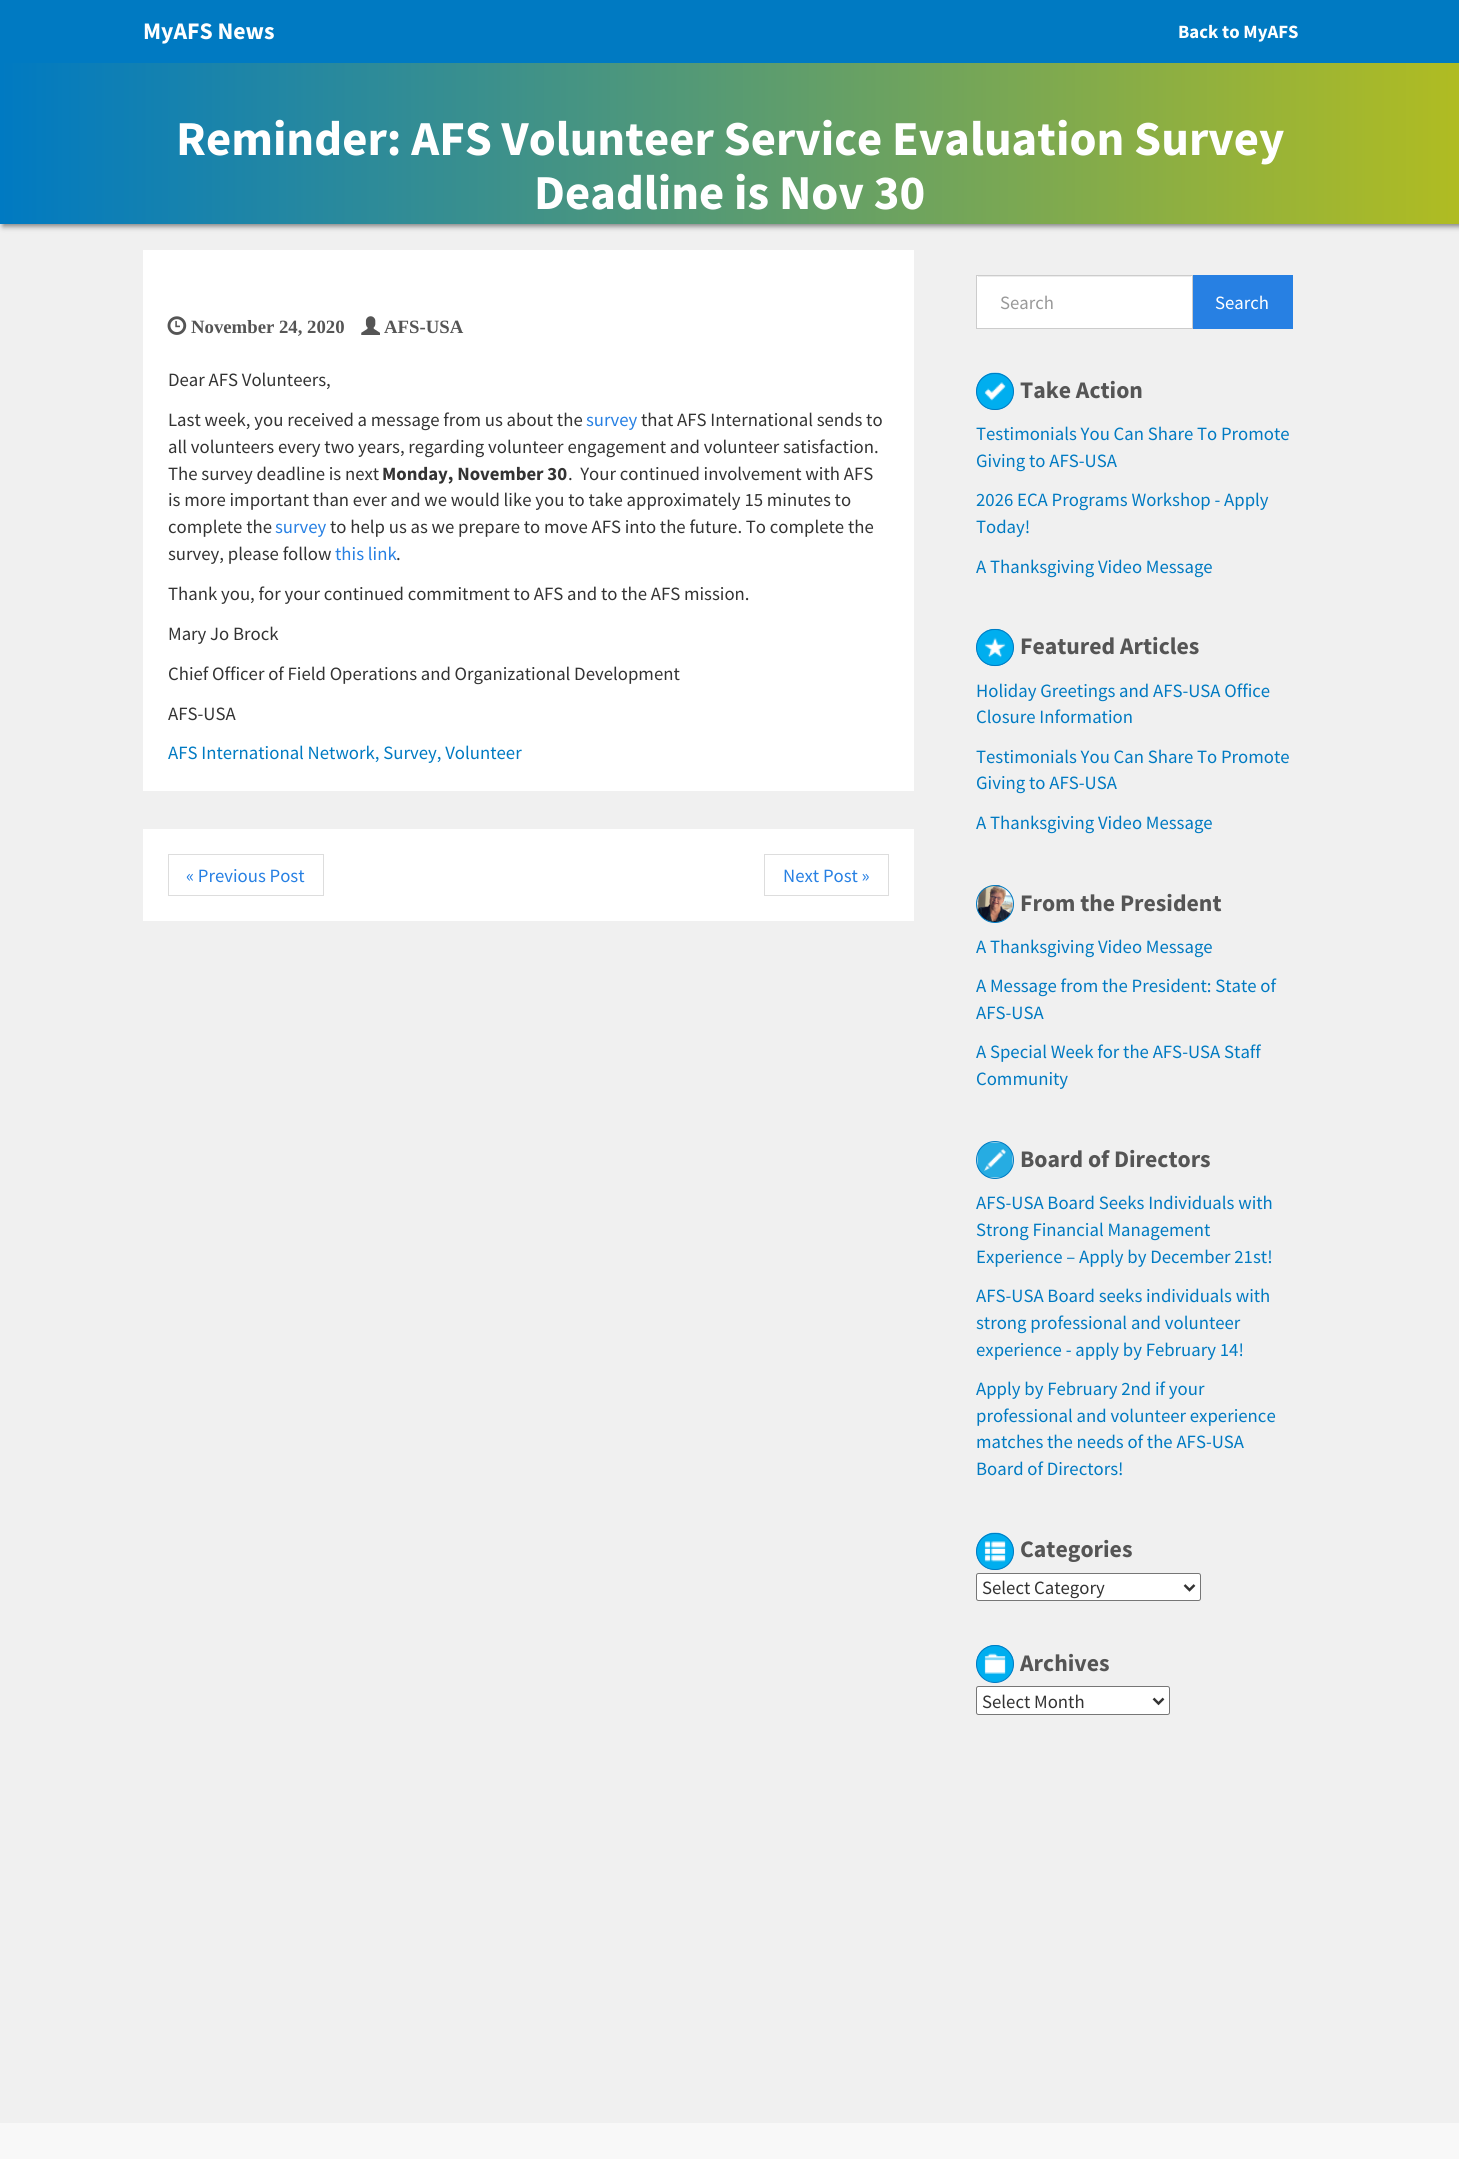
import math
import cairo

surface = cairo.ImageSurface(cairo.Format.RGB24, 1459, 2159)
ctx = cairo.Context(surface)
options = cairo.FontOptions()
options.set_hint_metrics(cairo.HintMetrics.OFF)
options.set_hint_style(cairo.HintStyle.NONE)
ctx.set_font_options(options)
ctx.set_miter_limit(4)


def ink(r, g, b):
    ctx.set_source_rgb(r / 255, g / 255, b / 255)


def write(x, y, s, family, size, color, bold=False, italic=False):
    ctx.select_font_face(family, cairo.FontSlant.ITALIC if italic else cairo.FontSlant.NORMAL, cairo.FontWeight.BOLD if bold else cairo.FontWeight.NORMAL)
    ctx.set_font_size(size)
    ink(*color)
    ctx.move_to(x, y)
    ctx.show_text(s)


def block(x, y, w, h, *color):
    ink(*color)
    ctx.rectangle(x, y, w, h)
    ctx.fill()


def round_path(x, y, w, h, r):
    ctx.new_sub_path()
    for i, (u, v) in enumerate([(x + w - r, y + h - r), (x + r, y + h - r), (x + r, y + r), (x + w - r, y + r)]):
        ctx.arc(u, v, r, i * math.pi / 2, (i + 1) * math.pi / 2)
    ctx.close_path()


def blur_box(x, y, w, h, r, blur, alpha):
    ctx.push_group_with_content(cairo.Content.ALPHA)
    ctx.set_operator(cairo.Operator.SOURCE)
    for i in range(15, -16, -2):
        e = blur * i / 6
        if min(w, h) + 2 * e > 0:
            ctx.set_source_rgba(0, 0, 0, alpha * math.erfc((i - 1) / 8.5) / 2)
            round_path(x - e, y - e, w + 2 * e, h + 2 * e, max(0, min(r + e + blur * .6, min(w, h) / 2 + e)))
            ctx.fill()
    ctx.mask(ctx.pop_group())


def paste(path, x, y, w, h):
    ctx.save()
    ctx.set_source_surface(cairo.ImageSurface.create_from_png(path), x, y)
    ctx.rectangle(x, y, w, h)
    ctx.fill()
    ctx.restore()


s1 = dict(family="Source Sans Pro", size=23.75, color=(255, 255, 255), bold=True)
s2 = dict(family="Source Sans Pro", size=18.75, color=(255, 255, 255), bold=True)
s3 = dict(family="Source Sans Pro", size=48.75, color=(255, 255, 255), bold=True)
s4 = dict(family="Liberation Serif", size=18.75, color=(85, 85, 85), bold=True)
s5 = dict(family="Source Sans Pro", size=18.75, color=(51, 51, 51))
s6 = dict(family="Source Sans Pro", size=18.75, color=(39, 128, 227))
s7 = dict(family="Source Sans Pro", size=18.75, color=(51, 51, 51), bold=True)
s8 = dict(family="Source Sans Pro", size=18.75, color=(0, 122, 194))
s9 = dict(family="Source Sans Pro", size=18.75, color=(153, 153, 153))
s10 = dict(family="Source Sans Pro", size=18.75, color=(255, 255, 255))
s11 = dict(family="Source Sans Pro", size=23.75, color=(85, 85, 85), bold=True)

ink(240, 240, 240)
ctx.paint()
ink(0, 0, 0)
blur_box(3, 39, 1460, 187, 0, 3, 0.5)
block(0, 0, 1459, 63, 0, 122, 194)
write(143, 39, "MyAFS News", **s1)
write(1178, 38, "Back to MyAFS", **s2)
gradient = cairo.LinearGradient(0, 130, 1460, 130)
gradient.add_color_stop_rgba(0, 0, 0.478, 0.761, 1)
gradient.add_color_stop_rgba(1, 0.69, 0.737, 0.133, 1)
ctx.set_source(gradient)
ctx.rectangle(0, 63, 1459, 161)
ctx.fill()
write(176, 155, "Reminder: AFS Volunteer Service Evaluation Survey", **s3)
write(534, 209, "Deadline is Nov 30", **s3)
block(143, 250, 771, 541, 255, 255, 255)
paste("pic1.png", 167, 316, 20, 19)
write(191, 333, "November 24, 2020", **s4)
paste("pic2.png", 361, 316, 19, 19)
write(384, 333, "AFS-USA", **s4)
write(168, 386, "Dear AFS Volunteers,", **s5)
write(168, 426, "Last week, you received a message from us about the", **s5)
write(586, 426, "survey", **s6)
write(641, 426, "that AFS International sends to", **s5)
write(168, 453, "all volunteers every two years, regarding volunteer engagement and volunteer satisfaction.", **s5)
write(168, 480, "The survey deadline is next", **s5)
write(382, 480, "Monday, November 30", **s7)
write(568, 480, ".  Your continued involvement with AFS", **s5)
write(168, 506, "is more important than ever and we would like you to take approximately 15 minutes to", **s5)
write(168, 533, "complete the", **s5)
write(275, 533, "survey", **s6)
write(330, 533, "to help us as we prepare to move AFS into the future. To complete the", **s5)
write(168, 560, "survey, please follow", **s5)
write(335, 560, "this link", **s6)
write(396, 560, ".", **s5)
write(168, 600, "Thank you, for your continued commitment to AFS and to the AFS mission.", **s5)
write(168, 640, "Mary Jo Brock", **s5)
write(168, 680, "Chief Officer of Field Operations and Organizational Development", **s5)
write(168, 720, "AFS-USA", **s5)
write(168, 759, "AFS International Network, Survey, Volunteer", **s8)
block(143, 829, 771, 92, 255, 255, 255)
ctx.rectangle(168.5, 854.5, 155, 41)
ink(221, 221, 221)
ctx.set_line_width(1)
ctx.stroke()
write(186, 882, "« Previous Post", **s6)
ctx.rectangle(764.5, 854.5, 124, 41)
ink(221, 221, 221)
ctx.stroke()
write(783, 882, "Next Post »", **s6)
block(977, 276, 215, 52, 255, 255, 255)
block(978, 276, 213, 1, 236, 236, 236)
ctx.rectangle(976.5, 275.5, 216, 53)
ink(204, 204, 204)
ctx.stroke()
write(1000, 309, "Search", **s9)
block(1193, 275, 100, 54, 39, 128, 227)
write(1215, 309, "Search", **s10)
paste("pic3.png", 976, 372, 38, 38)
round_path(976.5, 373.5, 37, 36, 18)
ink(0, 122, 194)
ctx.stroke()
write(1020, 398, "Take Action", **s11)
write(976, 440, "Testimonials You Can Share To Promote", **s8)
write(976, 467, "Giving to AFS-USA", **s8)
write(976, 506, "2026 ECA Programs Workshop - Apply", **s8)
write(976, 533, "Today!", **s8)
write(976, 573, "A Thanksgiving Video Message", **s8)
paste("pic4.png", 976, 628, 38, 39)
round_path(976.5, 629.5, 37, 36, 18)
ctx.stroke()
write(1020, 654, "Featured Articles", **s11)
write(976, 697, "Holiday Greetings and AFS-USA Office", **s8)
write(976, 723, "Closure Information", **s8)
write(976, 763, "Testimonials You Can Share To Promote", **s8)
write(976, 789, "Giving to AFS-USA", **s8)
write(976, 829, "A Thanksgiving Video Message", **s8)
paste("pic5.png", 977, 885, 36, 38)
ctx.arc(995, 904, 18.5, 0, 2 * math.pi)
ctx.stroke()
write(1020, 911, "From the President", **s11)
write(976, 953, "A Thanksgiving Video Message", **s8)
write(976, 992, "A Message from the President: State of", **s8)
write(976, 1019, "AFS-USA", **s8)
write(976, 1058, "A Special Week for the AFS-USA Staff", **s8)
write(976, 1085, "Community", **s8)
paste("pic6.png", 977, 1142, 36, 36)
ctx.arc(995, 1160, 18.5, 0, 2 * math.pi)
ctx.stroke()
write(1020, 1167, "Board of Directors", **s11)
write(976, 1209, "AFS-USA Board Seeks Individuals with", **s8)
write(976, 1236, "Strong Financial Management", **s8)
write(976, 1263, "Experience – Apply by December 21st!", **s8)
write(976, 1302, "AFS-USA Board seeks individuals with", **s8)
write(976, 1329, "strong professional and volunteer", **s8)
write(976, 1356, "experience - apply by February 14!", **s8)
write(976, 1395, "Apply by February 2nd if your", **s8)
write(976, 1422, "professional and volunteer experience", **s8)
write(976, 1448, "matches the needs of the AFS-USA", **s8)
write(976, 1475, "Board of Directors!", **s8)
paste("pic7.png", 976, 1532, 38, 38)
round_path(976.5, 1533.5, 37, 36, 18)
ctx.stroke()
write(1020, 1557, "Categories", **s11)
ink(255, 255, 255)
round_path(976.5, 1573.5, 224, 27, 2)
ctx.fill_preserve()
ink(118, 118, 118)
ctx.stroke()
ctx.new_path()
ctx.move_to(1184.5, 1585)
ctx.line_to(1189.5, 1590)
ctx.line_to(1194.5, 1585)
ink(51, 51, 51)
ctx.set_line_width(2.5)
ctx.stroke()
write(982, 1594, "Select Category", **s5)
paste("pic8.png", 976, 1645, 38, 38)
ctx.arc(995, 1664, 18.5, 0, 2 * math.pi)
ink(0, 122, 194)
ctx.set_line_width(1)
ctx.stroke()
write(1020, 1671, "Archives", **s11)
ink(255, 255, 255)
round_path(976.5, 1686.5, 193, 28, 2)
ctx.fill_preserve()
ink(118, 118, 118)
ctx.stroke()
ctx.new_path()
ctx.move_to(1153.5, 1698.5)
ctx.line_to(1158.5, 1703.5)
ctx.line_to(1163.5, 1698.5)
ink(51, 51, 51)
ctx.set_line_width(2.5)
ctx.stroke()
write(982, 1708, "Select Month", **s5)
block(0, 2123, 1459, 36, 248, 248, 248)
surface.write_to_png("screenshot.png")
